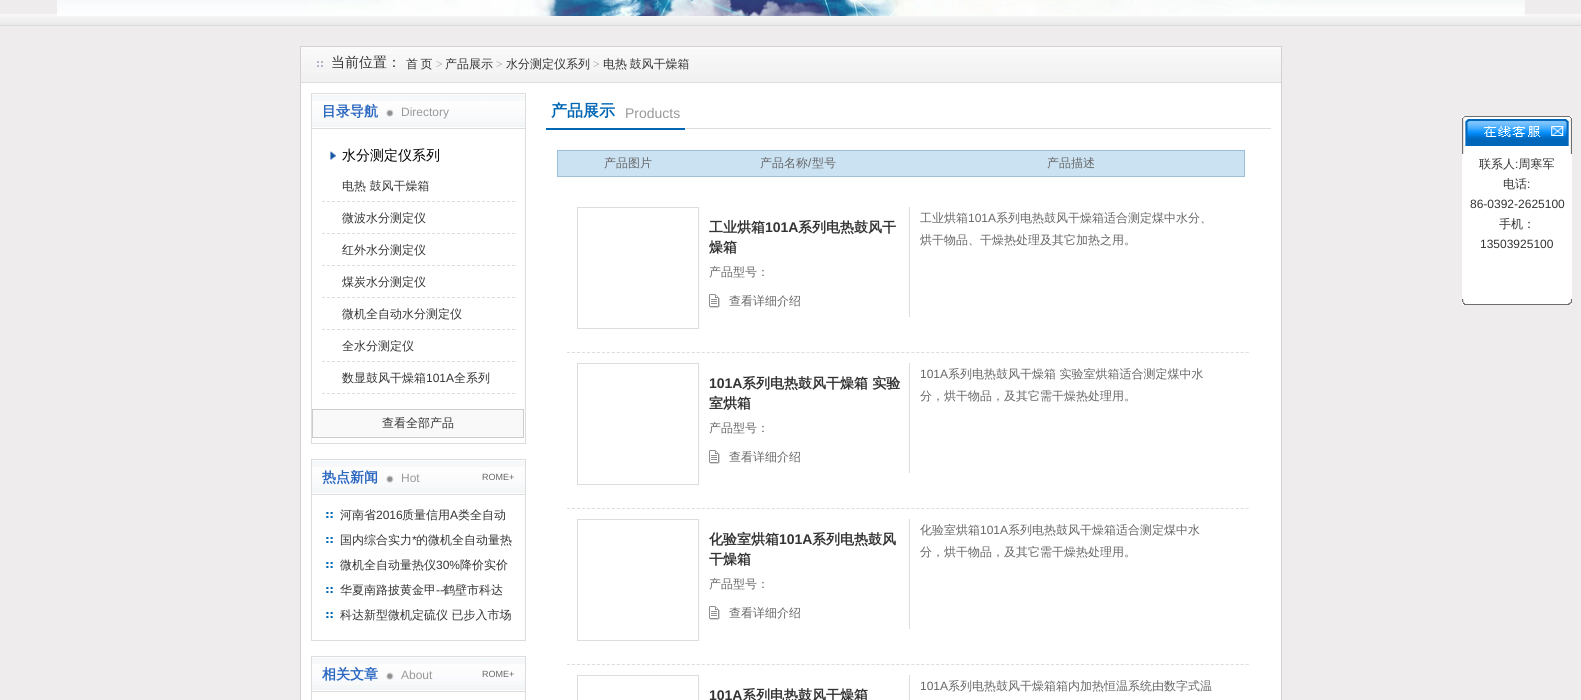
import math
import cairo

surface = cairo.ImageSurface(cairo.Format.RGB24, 1581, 700)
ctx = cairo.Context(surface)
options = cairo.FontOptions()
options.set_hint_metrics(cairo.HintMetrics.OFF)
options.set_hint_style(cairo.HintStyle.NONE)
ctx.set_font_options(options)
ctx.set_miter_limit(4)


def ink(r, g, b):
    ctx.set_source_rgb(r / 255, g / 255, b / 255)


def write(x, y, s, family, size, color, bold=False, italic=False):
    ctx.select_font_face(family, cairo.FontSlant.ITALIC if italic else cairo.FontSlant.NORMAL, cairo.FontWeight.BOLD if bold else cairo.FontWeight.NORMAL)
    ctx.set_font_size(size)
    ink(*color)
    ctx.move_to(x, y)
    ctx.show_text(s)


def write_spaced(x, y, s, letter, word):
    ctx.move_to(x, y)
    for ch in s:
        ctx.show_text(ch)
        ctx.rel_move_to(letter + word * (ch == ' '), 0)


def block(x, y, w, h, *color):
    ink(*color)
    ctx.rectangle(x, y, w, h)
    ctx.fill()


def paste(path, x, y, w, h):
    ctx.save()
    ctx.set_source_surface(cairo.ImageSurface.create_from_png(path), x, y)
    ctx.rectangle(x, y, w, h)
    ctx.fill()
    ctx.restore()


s1 = dict(family="WenQuanYi Zen Hei Medium", size=14, color=(51, 51, 51))
s2 = dict(family="Liberation Serif", size=12, color=(153, 153, 153))
s3 = dict(family="WenQuanYi Zen Hei Medium", size=12, color=(51, 51, 51))
s4 = dict(family="WenQuanYi Zen Hei", size=14, color=(42, 103, 192), bold=True)
s5 = dict(family="Liberation Sans", size=12, color=(153, 153, 153))
s6 = dict(family="WenQuanYi Zen Hei Medium", size=14, color=(0, 0, 0))
s7 = dict(family="Liberation Sans", size=12, color=(51, 51, 51))
s8 = dict(family="Liberation Sans", size=9, color=(102, 102, 102))
s9 = dict(family="WenQuanYi Zen Hei", size=16, color=(1, 102, 180), bold=True)
s10 = dict(family="Liberation Sans", size=14, color=(153, 153, 153))
s11 = dict(family="WenQuanYi Zen Hei Medium", size=12, color=(102, 102, 102))
s12 = dict(family="Liberation Sans", size=12, color=(102, 102, 102))
s13 = dict(family="WenQuanYi Zen Hei", size=14, color=(51, 51, 51), bold=True)
s14 = dict(family="Liberation Sans", size=14, color=(51, 51, 51), bold=True)

ink(238, 236, 237)
ctx.paint()
paste("pic1.png", 0, 14, 1581, 12)
paste("pic2.png", 57, 0, 1468, 16)
block(301, 83, 980, 617, 255, 255, 255)
ctx.rectangle(300.5, 46.5, 981, 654)
ink(210, 210, 210)
ctx.set_line_width(1)
ctx.stroke()
paste("pic3.png", 301, 47, 980, 35)
block(301, 82, 980, 1, 221, 221, 221)
paste("pic4.png", 313, 55, 15, 16)
write(331, 67, "当前位置：", **s1)
ctx.set_font_size(12)
write_spaced(406, 68, "首 页", 0, -1)
write(436, 68, ">", **s2)
write(445, 68, "产品展示", **s3)
write(496, 68, ">", **s2)
write(506, 68, "水分测定仪系列", **s3)
write(593, 68, ">", **s2)
ctx.select_font_face("WenQuanYi Zen Hei Medium")
ink(51, 51, 51)
write_spaced(603, 68, "电热 鼓风干燥箱", 0, -1)
paste("pic5.png", 312, 95, 213, 32)
ctx.rectangle(311.5, 93.5, 214, 350)
ink(221, 221, 221)
ctx.stroke()
paste("pic6.png", 386, 109, 8, 8)
write(322, 116, "目录导航", **s4)
write(401, 116, "Directory", **s5)
block(312, 128, 213, 1, 221, 221, 221)
paste("pic7.png", 330, 151, 6, 9)
write(342, 160, "水分测定仪系列", **s6)
ctx.new_path()
ctx.move_to(322, 201.5)
ctx.line_to(515, 201.5)
ink(221, 221, 221)
ctx.set_dash([3, 2])
ctx.stroke()
write(342, 190, "电热 鼓风干燥箱", **s3)
ctx.new_path()
ctx.move_to(322, 233.5)
ctx.line_to(515, 233.5)
ink(221, 221, 221)
ctx.stroke()
write(342, 222, "微波水分测定仪", **s3)
ctx.new_path()
ctx.move_to(322, 265.5)
ctx.line_to(515, 265.5)
ink(221, 221, 221)
ctx.stroke()
write(342, 254, "红外水分测定仪", **s3)
ctx.new_path()
ctx.move_to(322, 297.5)
ctx.line_to(515, 297.5)
ink(221, 221, 221)
ctx.stroke()
write(342, 286, "煤炭水分测定仪", **s3)
ctx.new_path()
ctx.move_to(322, 329.5)
ctx.line_to(515, 329.5)
ink(221, 221, 221)
ctx.stroke()
write(342, 318, "微机全自动水分测定仪", **s3)
ctx.new_path()
ctx.move_to(322, 361.5)
ctx.line_to(515, 361.5)
ink(221, 221, 221)
ctx.stroke()
write(342, 350, "全水分测定仪", **s3)
ctx.new_path()
ctx.move_to(322, 393.5)
ctx.line_to(515, 393.5)
ink(221, 221, 221)
ctx.stroke()
write(342, 382, "数显鼓风干燥箱", **s3)
write(426, 382, "101A", **s7)
write(454, 382, "全系列", **s3)
ink(249, 249, 249)
ctx.rectangle(312.5, 409.5, 211, 28)
ctx.fill_preserve()
ink(204, 204, 204)
ctx.set_dash([])
ctx.stroke()
write(382, 427, "查看全部产品", **s3)
paste("pic5.png", 312, 461, 213, 32)
ctx.rectangle(311.5, 459.5, 214, 181)
ink(221, 221, 221)
ctx.stroke()
paste("pic6.png", 386, 475, 8, 8)
write(322, 482, "热点新闻", **s4)
write(401, 482, "Hot", **s5)
write(482, 480, "ROME+", **s8)
block(312, 494, 213, 1, 221, 221, 221)
paste("pic8.png", 326, 512, 7, 6)
write(340, 519, "河南省", **s3)
write(376, 519, "2016", **s7)
write(402, 519, "质量信用", **s3)
write(450, 519, "A", **s7)
write(458, 519, "类全自动", **s3)
paste("pic8.png", 326, 537, 7, 6)
write(340, 544, "国内综合实力", **s3)
write(412, 544, "*", **s7)
write(416, 544, "的微机全自动量热", **s3)
paste("pic8.png", 326, 562, 7, 6)
write(340, 569, "微机全自动量热仪", **s3)
write(436, 569, "30%", **s7)
write(460, 569, "降价实价", **s3)
paste("pic8.png", 326, 587, 7, 6)
write(340, 594, "华夏南路披黄金甲", **s3)
write(436, 594, "--", **s7)
write(443, 594, "鹤壁市科达", **s3)
paste("pic8.png", 326, 612, 7, 6)
write(340, 619, "科达新型微机定硫仪 已步入市场", **s3)
paste("pic5.png", 312, 658, 213, 32)
ctx.rectangle(311.5, 656.5, 214, 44)
ink(221, 221, 221)
ctx.stroke()
paste("pic6.png", 386, 672, 8, 8)
write(322, 679, "相关文章", **s4)
write(401, 679, "About", **s5)
write(482, 677, "ROME+", **s8)
block(312, 691, 213, 1, 221, 221, 221)
block(685, 128, 586, 1, 221, 221, 221)
block(546, 128, 139, 2, 1, 102, 180)
write(551, 116, "产品展示", **s9)
write(625, 118, "Products", **s10)
block(558, 151, 686, 25, 203, 226, 243)
block(557, 150, 688, 1, 157, 192, 218)
block(1244, 150, 1, 27, 157, 192, 218)
block(557, 176, 688, 1, 157, 192, 218)
block(557, 150, 1, 27, 157, 192, 218)
write(604, 167, "产品图片", **s11)
write(760, 167, "产品名称", **s11)
write(808, 167, "/", **s12)
write(812, 167, "型号", **s11)
write(1047, 167, "产品描述", **s11)
ctx.new_path()
ctx.move_to(567, 352.5)
ctx.line_to(1249, 352.5)
ink(221, 221, 221)
ctx.set_dash([3, 1.99])
ctx.stroke()
ctx.rectangle(577.5, 207.5, 121, 121)
ctx.set_dash([])
ctx.stroke()
write(709, 232, "工业烘箱", **s13)
write(765, 232, "101A", **s14)
write(798, 232, "系列电热鼓风干", **s13)
write(709, 252, "燥箱", **s13)
write(709, 276, "产品型号：", **s11)
paste("pic9.png", 709, 294, 11, 14)
write(729, 305, "查看详细介绍", **s11)
block(909, 207, 1, 110, 221, 221, 221)
write(920, 222, "工业烘箱", **s11)
write(968, 222, "101A", **s12)
write(996, 222, "系列电热鼓风干燥箱适合测定煤中水分、", **s11)
write(920, 244, "烘干物品、干燥热处理及其它加热之用。", **s11)
ctx.new_path()
ctx.move_to(567, 508.5)
ctx.line_to(1249, 508.5)
ink(221, 221, 221)
ctx.set_dash([3, 1.99])
ctx.stroke()
ctx.rectangle(577.5, 363.5, 121, 121)
ctx.set_dash([])
ctx.stroke()
write(709, 388, "101A", **s14)
write(742, 388, "系列电热鼓风干燥箱 实验", **s13)
write(709, 408, "室烘箱", **s13)
write(709, 432, "产品型号：", **s11)
paste("pic9.png", 709, 450, 11, 14)
write(729, 461, "查看详细介绍", **s11)
block(909, 363, 1, 110, 221, 221, 221)
write(920, 378, "101A", **s12)
write(948, 378, "系列电热鼓风干燥箱 实验室烘箱适合测定煤中水", **s11)
write(920, 400, "分，烘干物品，及其它需干燥热处理用。", **s11)
ctx.new_path()
ctx.move_to(567, 664.5)
ctx.line_to(1249, 664.5)
ink(221, 221, 221)
ctx.set_dash([3, 1.99])
ctx.stroke()
ctx.rectangle(577.5, 519.5, 121, 121)
ctx.set_dash([])
ctx.stroke()
write(709, 544, "化验室烘箱", **s13)
write(779, 544, "101A", **s14)
write(812, 544, "系列电热鼓风", **s13)
write(709, 564, "干燥箱", **s13)
write(709, 588, "产品型号：", **s11)
paste("pic9.png", 709, 606, 11, 14)
write(729, 617, "查看详细介绍", **s11)
block(909, 519, 1, 110, 221, 221, 221)
write(920, 534, "化验室烘箱", **s11)
write(980, 534, "101A", **s12)
write(1008, 534, "系列电热鼓风干燥箱适合测定煤中水", **s11)
write(920, 556, "分，烘干物品，及其它需干燥热处理用。", **s11)
ctx.rectangle(577.5, 675.5, 121, 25)
ink(221, 221, 221)
ctx.stroke()
block(909, 675, 1, 25, 221, 221, 221)
write(920, 690, "101A", **s12)
write(948, 690, "系列电热鼓风干燥箱箱内加热恒温系统由数字式温", **s11)
write(709, 700, "101A", **s14)
write(742, 700, "系列电热鼓风干燥箱", **s13)
paste("pic10.png", 1462, 116, 110, 38)
block(1462, 154, 110, 145, 255, 255, 255)
write(1479, 168, "联系人 周寒军", **s3)
write(1515, 168, ":", **s7)
write(1503, 188, "电话", **s3)
write(1527, 188, ":", **s7)
write(1470, 208, "86-0392-2625100", **s7)
write(1499, 228, "手机：", **s3)
write(1480, 248, "13503925100", **s7)
paste("pic11.png", 1462, 299, 110, 6)
surface.write_to_png("screenshot.png")
